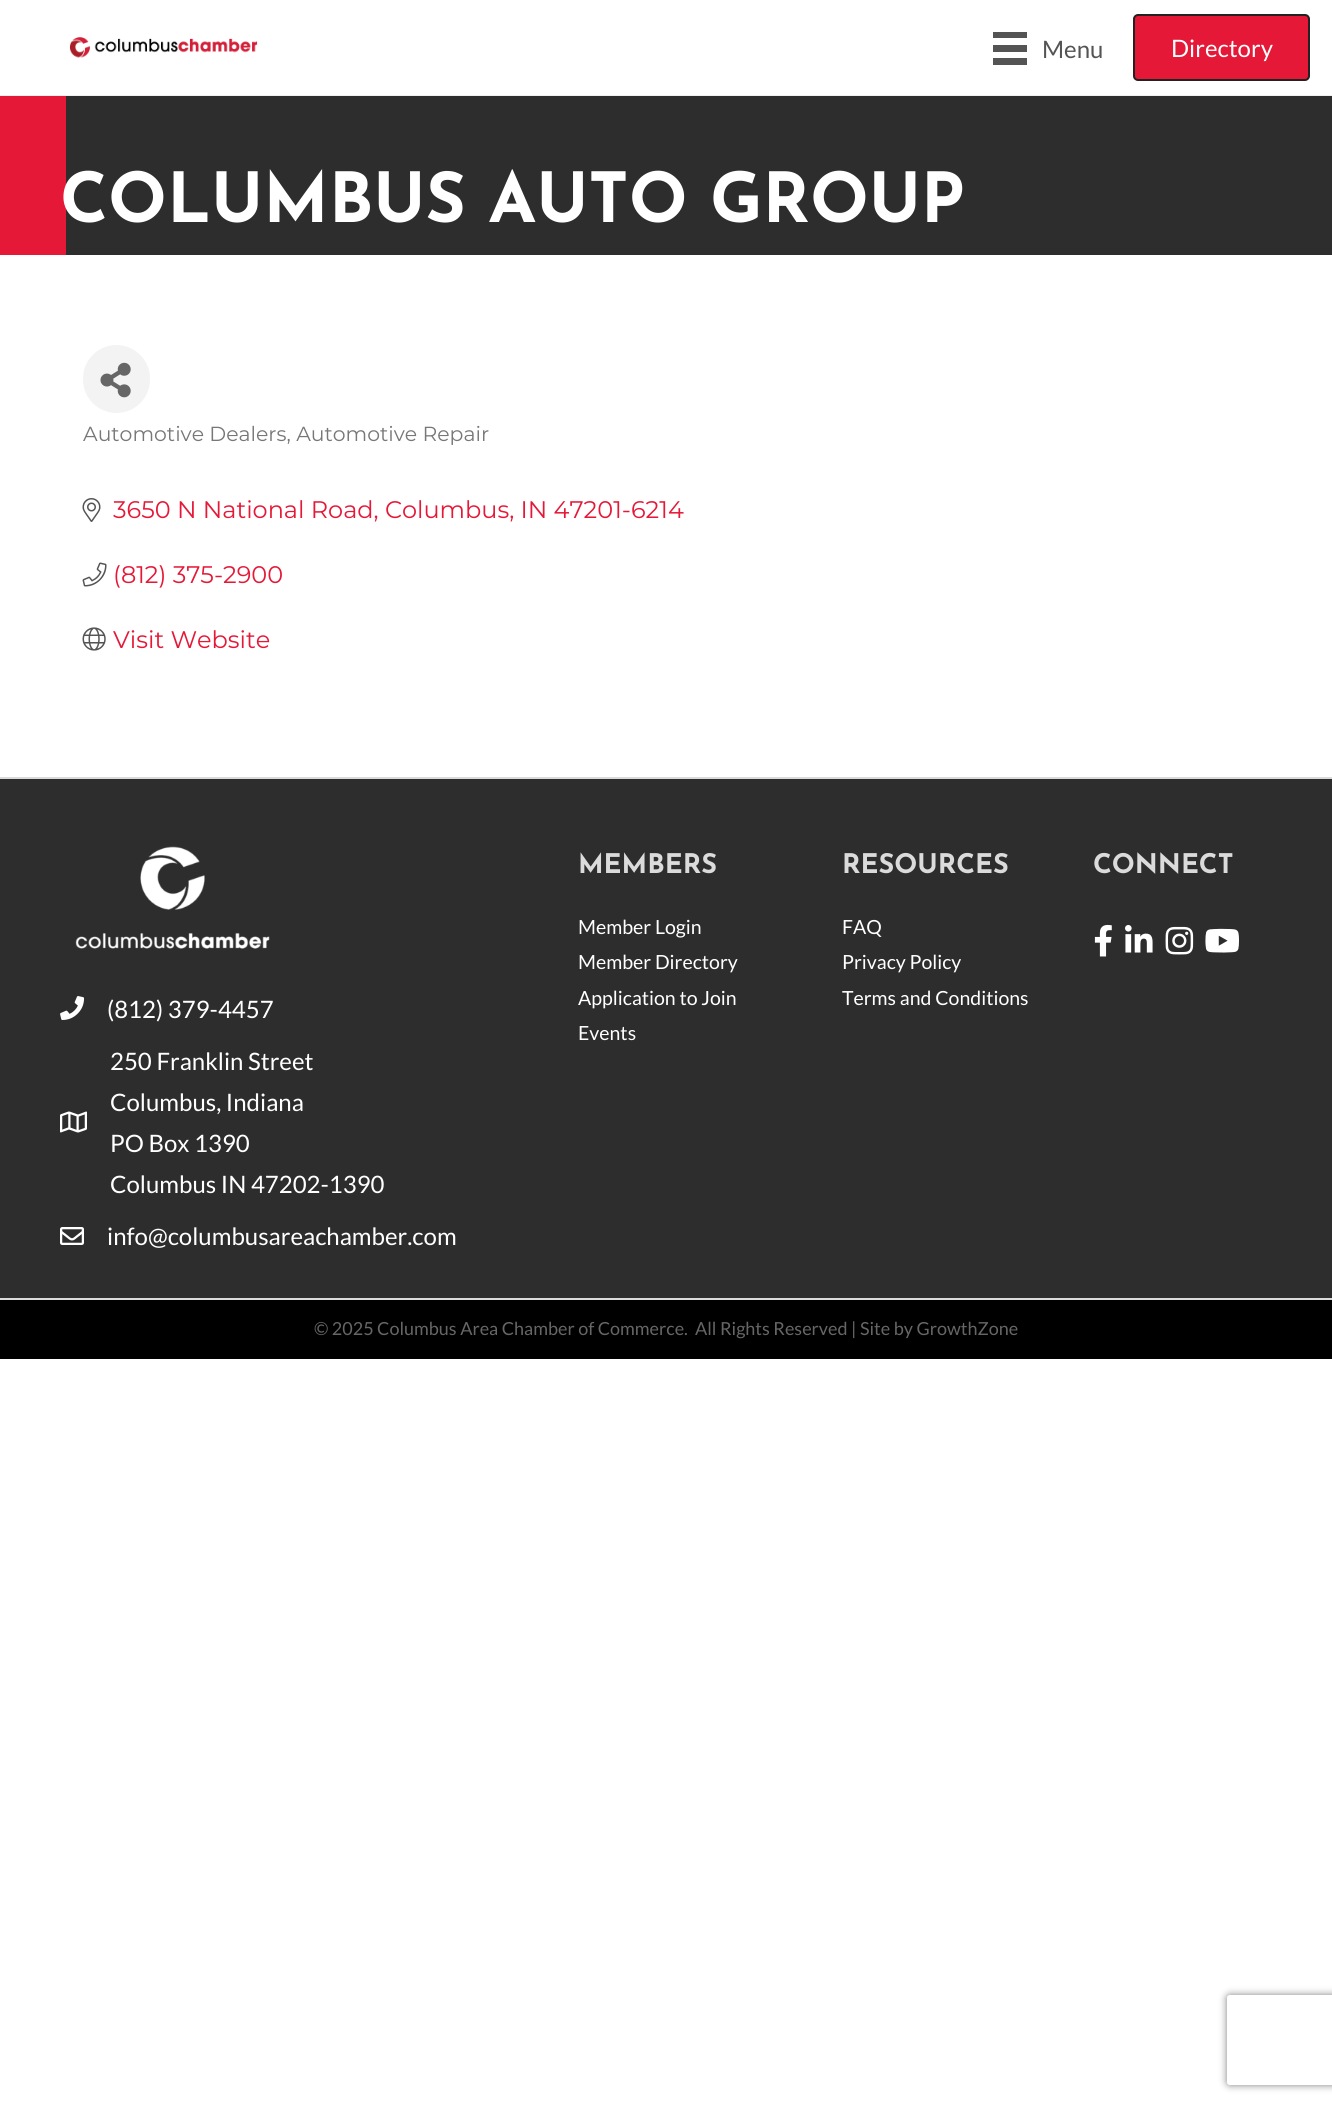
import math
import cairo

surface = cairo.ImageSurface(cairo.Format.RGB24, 1332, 2105)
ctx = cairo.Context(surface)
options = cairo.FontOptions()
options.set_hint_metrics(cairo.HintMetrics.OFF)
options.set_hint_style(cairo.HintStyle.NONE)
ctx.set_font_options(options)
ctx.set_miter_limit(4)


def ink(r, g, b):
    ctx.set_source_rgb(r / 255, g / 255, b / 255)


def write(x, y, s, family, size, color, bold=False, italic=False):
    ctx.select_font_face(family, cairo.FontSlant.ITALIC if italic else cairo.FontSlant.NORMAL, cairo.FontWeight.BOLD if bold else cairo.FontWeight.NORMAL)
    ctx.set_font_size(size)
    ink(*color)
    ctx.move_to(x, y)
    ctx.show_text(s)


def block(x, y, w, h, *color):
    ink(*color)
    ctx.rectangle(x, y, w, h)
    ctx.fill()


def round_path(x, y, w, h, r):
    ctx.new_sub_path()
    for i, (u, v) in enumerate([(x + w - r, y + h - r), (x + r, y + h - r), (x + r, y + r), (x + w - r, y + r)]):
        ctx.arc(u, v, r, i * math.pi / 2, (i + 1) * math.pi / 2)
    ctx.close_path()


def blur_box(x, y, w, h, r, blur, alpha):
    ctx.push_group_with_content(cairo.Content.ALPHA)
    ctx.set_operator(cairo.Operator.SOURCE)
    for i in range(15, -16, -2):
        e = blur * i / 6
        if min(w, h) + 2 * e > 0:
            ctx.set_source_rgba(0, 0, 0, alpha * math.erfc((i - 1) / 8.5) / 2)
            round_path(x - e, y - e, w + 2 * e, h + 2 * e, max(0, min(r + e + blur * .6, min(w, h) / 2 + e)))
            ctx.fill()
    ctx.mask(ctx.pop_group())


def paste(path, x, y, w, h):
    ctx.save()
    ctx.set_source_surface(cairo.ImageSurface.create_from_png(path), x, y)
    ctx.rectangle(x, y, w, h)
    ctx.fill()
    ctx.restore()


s1 = dict(family="Lato", size=24, color=(84, 84, 84))
s2 = dict(family="Lato", size=24, color=(255, 255, 255))
s3 = dict(family="Josefin Sans Thin", size=69, color=(255, 255, 255))
s4 = dict(family="Montserrat", size=20.4, color=(119, 119, 119))
s5 = dict(family="Montserrat", size=24, color=(229, 24, 55))
s6 = dict(family="Josefin Sans Thin", size=27, color=(219, 219, 219))
s7 = dict(family="Lato", size=19.5, color=(255, 255, 255))
s8 = dict(family="Lato", size=18, color=(102, 102, 102))

ink(255, 255, 255)
ctx.paint()
block(0, 95, 1332, 1, 239, 239, 239)
paste("pic1.png", 69, 37, 189, 21)
block(993, 32, 34, 6, 84, 84, 84)
block(993, 45, 34, 7, 84, 84, 84)
block(993, 58, 34, 7, 84, 84, 84)
write(1042, 58, "Menu", **s1)
ink(229, 24, 55)
round_path(1134, 15, 175, 65, 4)
ctx.fill_preserve()
ink(34, 34, 34)
ctx.stroke()
write(1171, 57, "Directory", **s2)
block(66, 96, 1266, 159, 45, 45, 45)
block(0, 96, 66, 159, 229, 24, 55)
write(60, 222, "COLUMBUS AUTO GROUP", **s3)
ink(243, 243, 243)
round_path(83, 345, 67, 68, 33.5)
ctx.fill()
paste("pic2.png", 100, 362, 31, 36)
write(83, 441, "Automotive Dealers, Automotive Repair", **s4)
paste("pic3.png", 82, 498, 19, 24)
write(113, 518, "3650 N National Road, Columbus, IN 47201-6214", **s5)
paste("pic4.png", 82, 562, 25, 25)
write(113, 583, "(812) 375-2900", **s5)
paste("pic5.png", 82, 627, 24, 24)
write(113, 648, "Visit Website", **s5)
block(0, 779, 1332, 519, 45, 45, 45)
block(0, 777, 1332, 2, 218, 218, 218)
write(578, 873, "MEMBERS", **s6)
write(578, 934, "Member Login", **s7)
write(578, 969, "Member Directory", **s7)
write(578, 1005, "Application to Join", **s7)
write(578, 1040, "Events", **s7)
write(842, 873, "RESOURCES", **s6)
write(842, 934, "FAQ", **s7)
write(842, 969, "Privacy Policy", **s7)
write(842, 1005, "Terms and Conditions", **s7)
write(1093, 873, "CONNECT", **s6)
paste("pic6.png", 1094, 924, 18, 33)
paste("pic7.png", 1125, 925, 28, 28)
paste("pic8.png", 1165, 926, 29, 29)
paste("pic9.png", 1205, 928, 34, 25)
paste("pic10.png", 75, 846, 195, 103)
paste("pic11.png", 60, 996, 25, 24)
write(107, 1018, "(812) 379-4457", **s2)
paste("pic12.png", 60, 1111, 27, 22)
write(110, 1070, "250 Franklin Street", **s2)
write(110, 1111, "Columbus, Indiana", **s2)
write(110, 1152, "PO Box 1390", **s2)
write(110, 1193, "Columbus IN 47202-1390", **s2)
paste("pic13.png", 60, 1227, 24, 18)
write(107, 1245, "info@columbusareachamber.com", **s2)
block(0, 1300, 1332, 59, 0, 0, 0)
block(0, 1298, 1332, 2, 218, 218, 218)
write(314, 1335, "© 2025 Columbus Area Chamber of Commerce.", **s8)
write(695, 1335, "All Rights Reserved | Site by GrowthZone", **s8)
ctx.save()
ctx.set_fill_rule(cairo.FillRule.EVEN_ODD)
ctx.new_path()
ctx.move_to(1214, 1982)
ctx.line_to(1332, 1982)
ctx.line_to(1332, 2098)
ctx.line_to(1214, 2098)
ctx.close_path()
ctx.move_to(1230, 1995)
ctx.line_to(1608, 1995)
ctx.curve_to(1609.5, 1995, 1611, 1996.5, 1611, 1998)
ctx.line_to(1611, 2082)
ctx.curve_to(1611, 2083.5, 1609.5, 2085, 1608, 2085)
ctx.line_to(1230, 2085)
ctx.curve_to(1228.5, 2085, 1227, 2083.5, 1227, 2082)
ctx.line_to(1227, 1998)
ctx.curve_to(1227, 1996.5, 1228.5, 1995, 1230, 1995)
ctx.close_path()
ctx.clip()
ink(128, 128, 128)
blur_box(1227, 1995, 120, 90, 3, 4, 1)
ctx.restore()
surface.write_to_png("screenshot.png")
